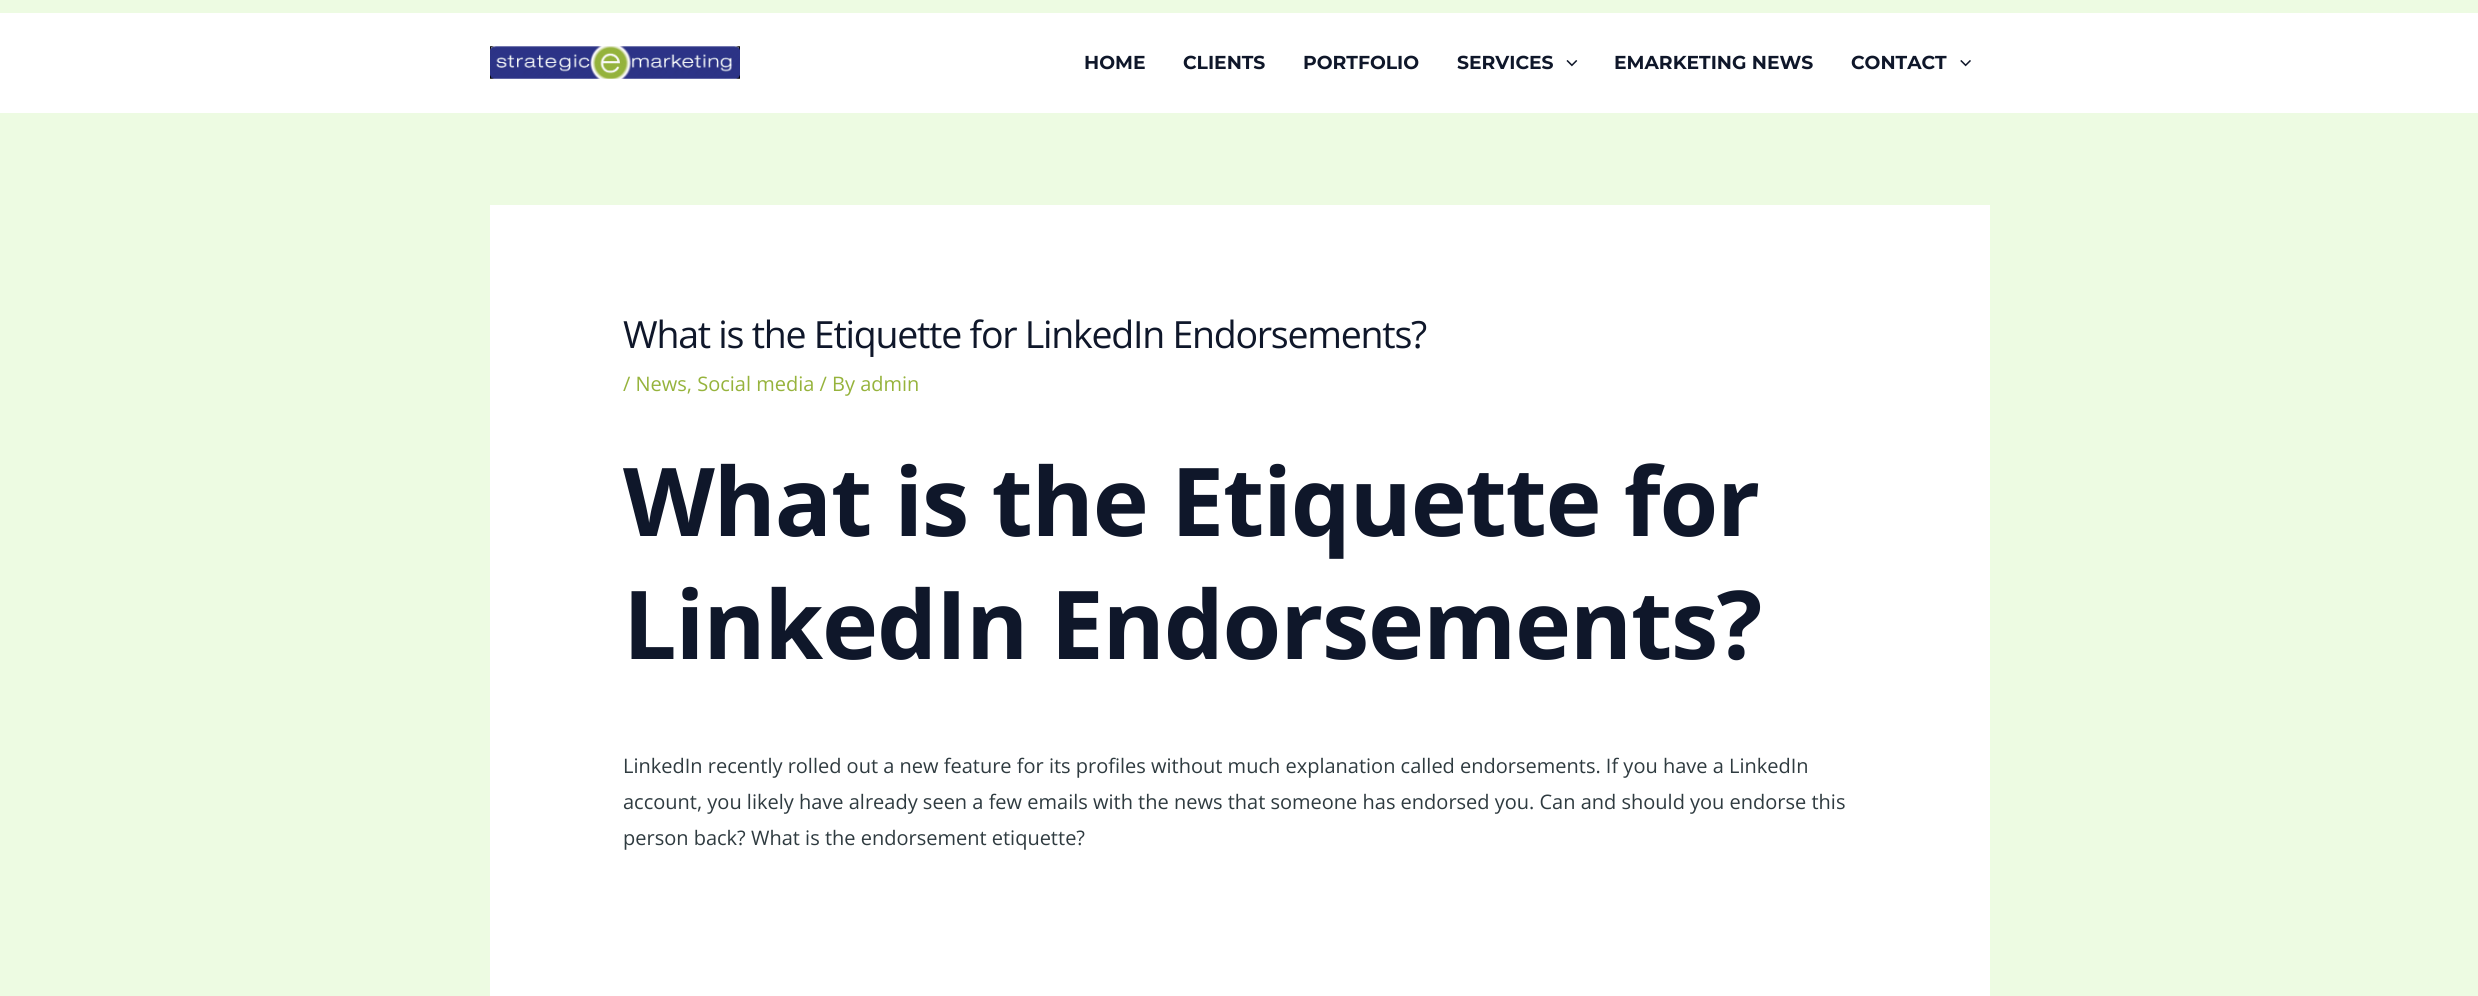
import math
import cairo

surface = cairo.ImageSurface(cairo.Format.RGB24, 2478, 996)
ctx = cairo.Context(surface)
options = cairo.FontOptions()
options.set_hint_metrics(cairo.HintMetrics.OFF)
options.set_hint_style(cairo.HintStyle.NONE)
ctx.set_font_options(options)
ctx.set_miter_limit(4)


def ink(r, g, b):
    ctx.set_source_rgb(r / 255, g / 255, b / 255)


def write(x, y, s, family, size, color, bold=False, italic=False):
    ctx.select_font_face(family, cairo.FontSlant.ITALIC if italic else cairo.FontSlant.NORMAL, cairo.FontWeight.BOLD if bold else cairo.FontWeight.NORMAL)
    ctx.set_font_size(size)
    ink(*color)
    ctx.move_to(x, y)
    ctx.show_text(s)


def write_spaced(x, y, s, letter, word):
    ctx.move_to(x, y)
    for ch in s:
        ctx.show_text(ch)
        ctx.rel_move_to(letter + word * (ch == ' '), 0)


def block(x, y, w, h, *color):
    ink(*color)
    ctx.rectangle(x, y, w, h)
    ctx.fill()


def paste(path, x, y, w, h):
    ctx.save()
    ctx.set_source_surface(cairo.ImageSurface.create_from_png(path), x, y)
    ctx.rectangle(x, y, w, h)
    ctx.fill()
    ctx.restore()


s1 = dict(family="Montserrat Thin", size=18.75, color=(15, 23, 42))
s2 = dict(family="Open Sans", size=20, color=(150, 179, 60))
s3 = dict(family="Open Sans", size=20, color=(47, 59, 64))

ink(237, 251, 226)
ctx.paint()
block(0, 13, 2478, 100, 255, 255, 255)
paste("pic1.png", 490, 46, 250, 33)
write(1084, 69, "HOME", **s1)
write(1183, 69, "CLIENTS", **s1)
write(1303, 69, "PORTFOLIO", **s1)
write(1457, 69, "SERVICES", **s1)
paste("pic2.png", 1566, 60, 12, 7)
write(1614, 69, "EMARKETING NEWS", **s1)
write(1851, 69, "CONTACT", **s1)
paste("pic3.png", 1960, 60, 11, 7)
block(490, 205, 1500, 791, 255, 255, 255)
ctx.select_font_face("Open Sans")
ctx.set_font_size(37.5)
ink(15, 23, 42)
write_spaced(623, 348, "What is the Etiquette for LinkedIn Endorsements?", -1.25, 0)
write(623, 391, "/ News, Social media / By admin", **s2)
ctx.select_font_face("Open Sans", cairo.FontSlant.NORMAL, cairo.FontWeight.BOLD)
ctx.set_font_size(95)
ink(15, 23, 42)
write_spaced(623, 536, "What is the Etiquette for", -1.25, 0)
write_spaced(623, 659, "LinkedIn Endorsements?", -1.25, 0)
write(623, 773, "LinkedIn recently rolled out a new feature for its profiles without much explanation called endorsements. If you have a LinkedIn", **s3)
write(623, 809, "account, you likely have already seen a few emails with the news that someone has endorsed you. Can and should you endorse this", **s3)
write(623, 845, "person back? What is the endorsement etiquette?", **s3)
surface.write_to_png("screenshot.png")
